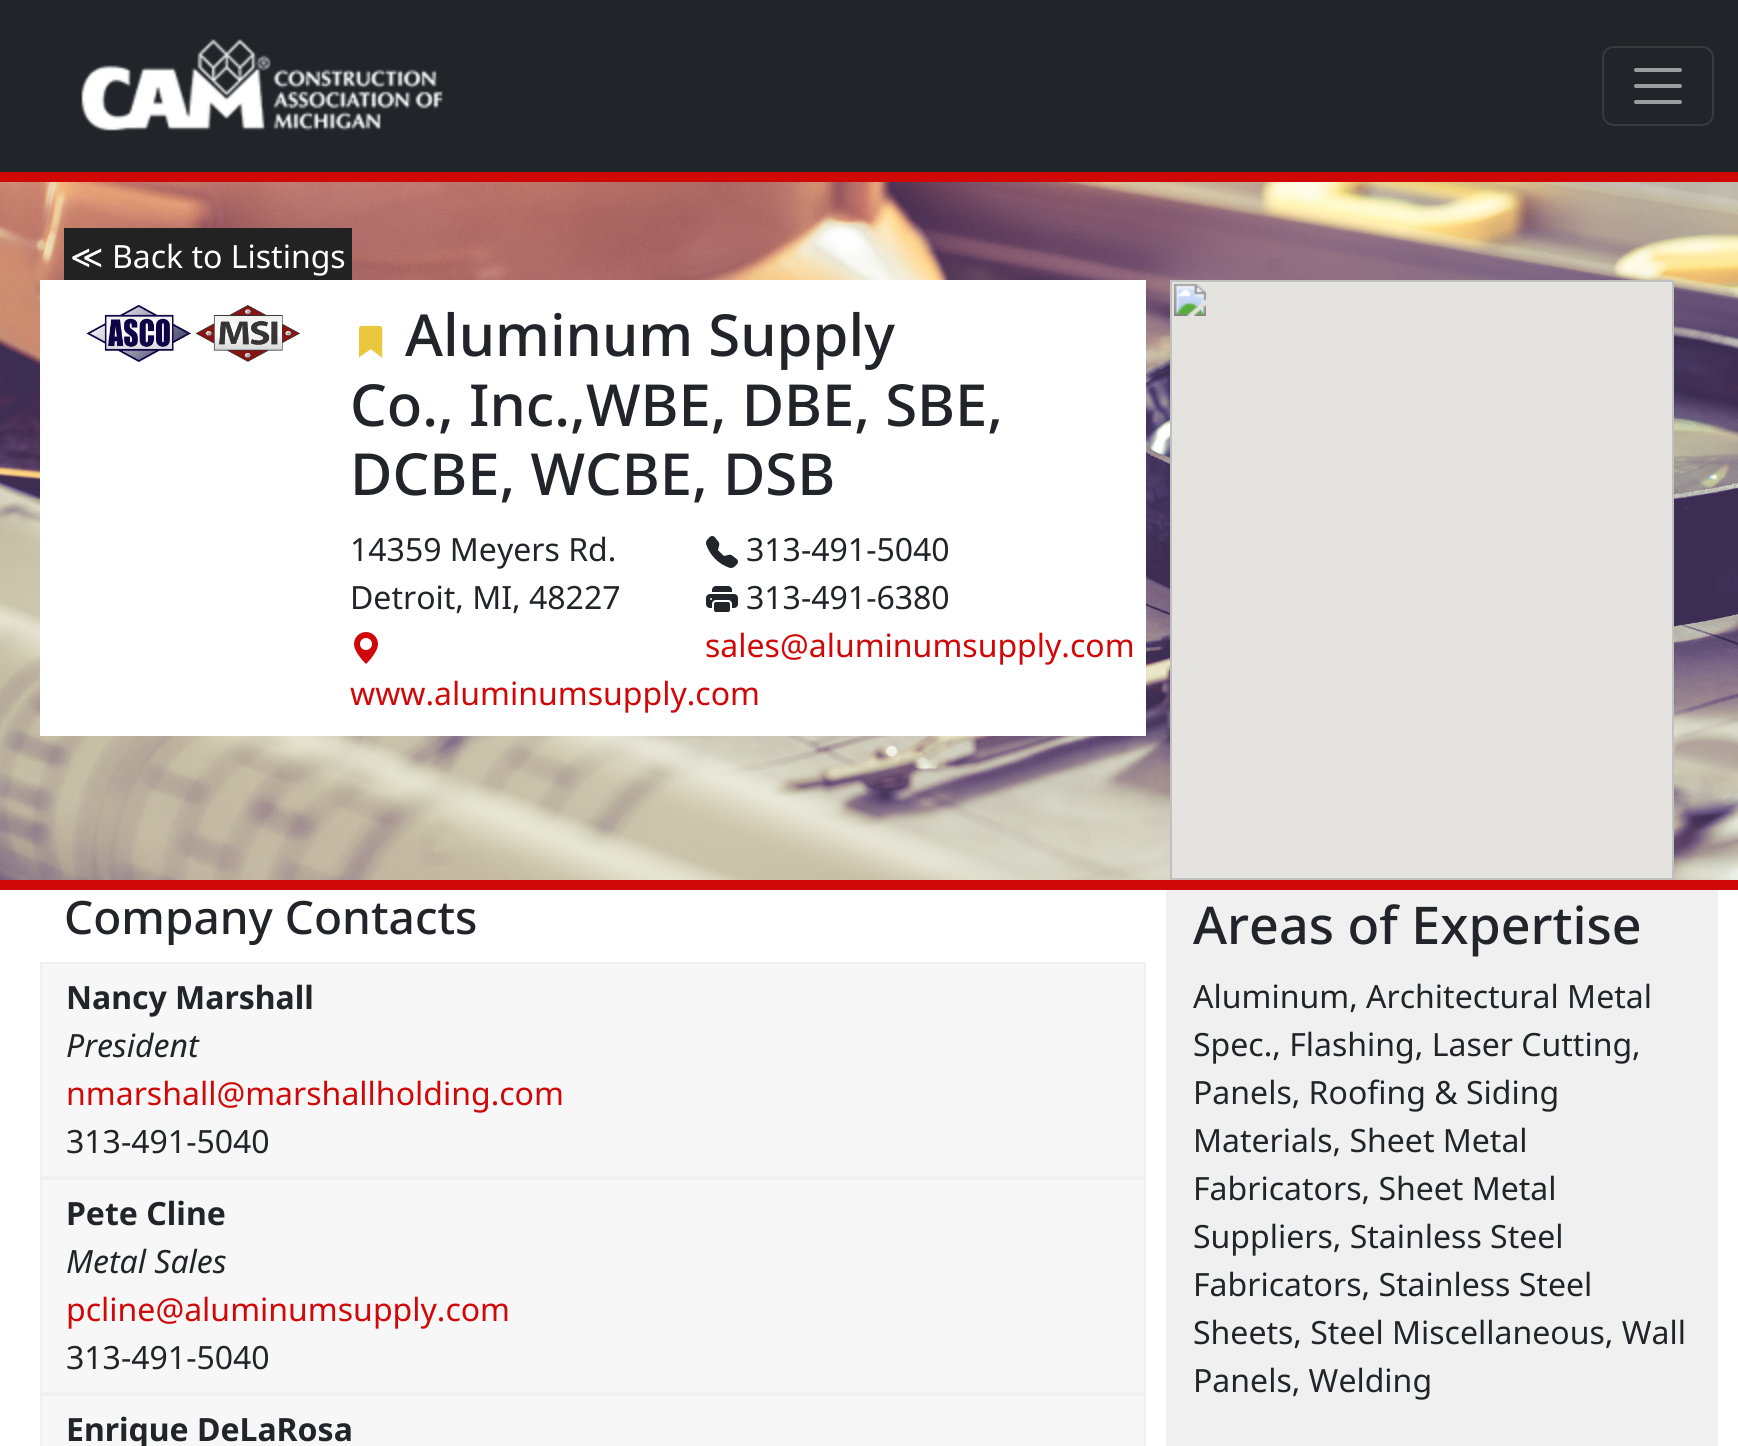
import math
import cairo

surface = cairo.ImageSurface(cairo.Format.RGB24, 1738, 1446)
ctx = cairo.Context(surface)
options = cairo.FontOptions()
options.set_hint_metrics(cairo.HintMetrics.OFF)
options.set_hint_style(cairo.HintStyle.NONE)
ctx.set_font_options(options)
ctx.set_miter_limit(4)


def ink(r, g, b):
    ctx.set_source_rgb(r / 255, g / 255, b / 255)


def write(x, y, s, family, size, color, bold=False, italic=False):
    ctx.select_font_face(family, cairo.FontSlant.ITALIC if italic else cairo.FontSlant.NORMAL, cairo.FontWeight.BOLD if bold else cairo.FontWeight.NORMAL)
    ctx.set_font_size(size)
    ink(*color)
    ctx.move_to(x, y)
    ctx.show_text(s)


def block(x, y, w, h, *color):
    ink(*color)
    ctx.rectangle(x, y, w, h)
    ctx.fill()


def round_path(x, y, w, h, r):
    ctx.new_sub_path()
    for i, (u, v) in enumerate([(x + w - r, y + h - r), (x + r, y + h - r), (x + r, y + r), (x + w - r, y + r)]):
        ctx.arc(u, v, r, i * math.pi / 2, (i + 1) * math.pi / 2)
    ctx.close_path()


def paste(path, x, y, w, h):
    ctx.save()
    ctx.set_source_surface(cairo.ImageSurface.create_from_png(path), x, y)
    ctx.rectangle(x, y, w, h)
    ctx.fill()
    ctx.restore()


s1 = dict(family="DejaVu Sans", size=32, color=(255, 255, 255))
s2 = dict(family="Noto Sans", size=32, color=(255, 255, 255))
s3 = dict(family="Noto Sans Medium", size=58, color=(33, 37, 41))
s4 = dict(family="Noto Sans", size=32, color=(33, 37, 41))
s5 = dict(family="Noto Sans", size=32, color=(209, 8, 8))
s6 = dict(family="Noto Sans Medium", size=46, color=(33, 37, 41))
s7 = dict(family="Noto Sans", size=32, color=(33, 37, 41), bold=True)
s8 = dict(family="Noto Sans", size=32, color=(33, 37, 41), italic=True)
s9 = dict(family="Noto Sans Medium", size=52, color=(33, 37, 41))

ink(255, 255, 255)
ctx.paint()
block(0, 0, 1738, 172, 33, 37, 41)
block(0, 172, 1738, 10, 209, 8, 8)
paste("pic1.png", 81, 39, 362, 92)
round_path(1603, 47, 110, 78, 11)
ink(55, 59, 62)
ctx.stroke()
ctx.new_path()
ctx.move_to(1636, 70)
ctx.line_to(1680, 70)
ctx.move_to(1636, 86)
ctx.line_to(1680, 86)
ctx.move_to(1636, 102)
ctx.line_to(1680, 102)
ink(155, 157, 159)
ctx.set_line_width(4)
ctx.set_line_cap(cairo.LineCap.ROUND)
ctx.stroke()
paste("pic2.png", 0, 182, 1738, 698)
block(64, 228, 288, 52, 34, 34, 34)
write(70, 268, "≪", **s1)
write(112, 268, "Back to Listings", **s2)
block(40, 280, 1106, 456, 255, 255, 255)
paste("pic3.png", 86, 304, 215, 58)
paste("pic4.png", 359, 325, 24, 33)
write(405, 356, "Aluminum Supply", **s3)
write(350, 426, "Co., Inc.,WBE, DBE, SBE,", **s3)
write(350, 495, "DCBE, WCBE, DSB", **s3)
write(350, 561, "14359 Meyers Rd.", **s4)
write(350, 609, "Detroit, MI, 48227", **s4)
paste("pic5.png", 354, 632, 24, 32)
write(350, 705, "www.aluminumsupply.com", **s5)
paste("pic6.png", 706, 536, 32, 32)
write(746, 561, "313-491-5040", **s4)
paste("pic7.png", 706, 586, 32, 26)
write(746, 609, "313-491-6380", **s4)
write(705, 657, "sales@aluminumsupply.com", **s5)
paste("pic8.png", 1170, 280, 504, 600)
block(0, 880, 1738, 10, 209, 8, 8)
write(64, 934, "Company Contacts", **s6)
ink(248, 247, 247)
ctx.rectangle(41, 963, 1104, 214)
ctx.fill_preserve()
ink(240, 240, 240)
ctx.set_line_width(2)
ctx.set_line_cap(cairo.LineCap.BUTT)
ctx.stroke()
write(66, 1009, "Nancy Marshall", **s7)
write(66, 1057, "President", **s8)
write(66, 1105, "nmarshall@marshallholding.com", **s5)
write(66, 1153, "313-491-5040", **s4)
ink(248, 247, 247)
ctx.rectangle(41, 1179, 1104, 214)
ctx.fill_preserve()
ink(240, 240, 240)
ctx.stroke()
write(66, 1225, "Pete Cline", **s7)
write(66, 1273, "Metal Sales", **s8)
write(66, 1321, "pcline@aluminumsupply.com", **s5)
write(66, 1369, "313-491-5040", **s4)
ink(248, 247, 247)
ctx.rectangle(41, 1395, 1104, 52)
ctx.fill_preserve()
ink(240, 240, 240)
ctx.stroke()
write(66, 1441, "Enrique DeLaRosa", **s7)
block(1166, 890, 552, 556, 240, 240, 240)
write(1193, 944, "Areas of Expertise", **s9)
write(1193, 1008, "Aluminum, Architectural Metal", **s4)
write(1193, 1056, "Spec., Flashing, Laser Cutting,", **s4)
write(1193, 1104, "Panels, Roofing & Siding", **s4)
write(1193, 1152, "Materials, Sheet Metal", **s4)
write(1193, 1200, "Fabricators, Sheet Metal", **s4)
write(1193, 1248, "Suppliers, Stainless Steel", **s4)
write(1193, 1296, "Fabricators, Stainless Steel", **s4)
write(1193, 1344, "Sheets, Steel Miscellaneous, Wall", **s4)
write(1193, 1392, "Panels, Welding", **s4)
surface.write_to_png("screenshot.png")
